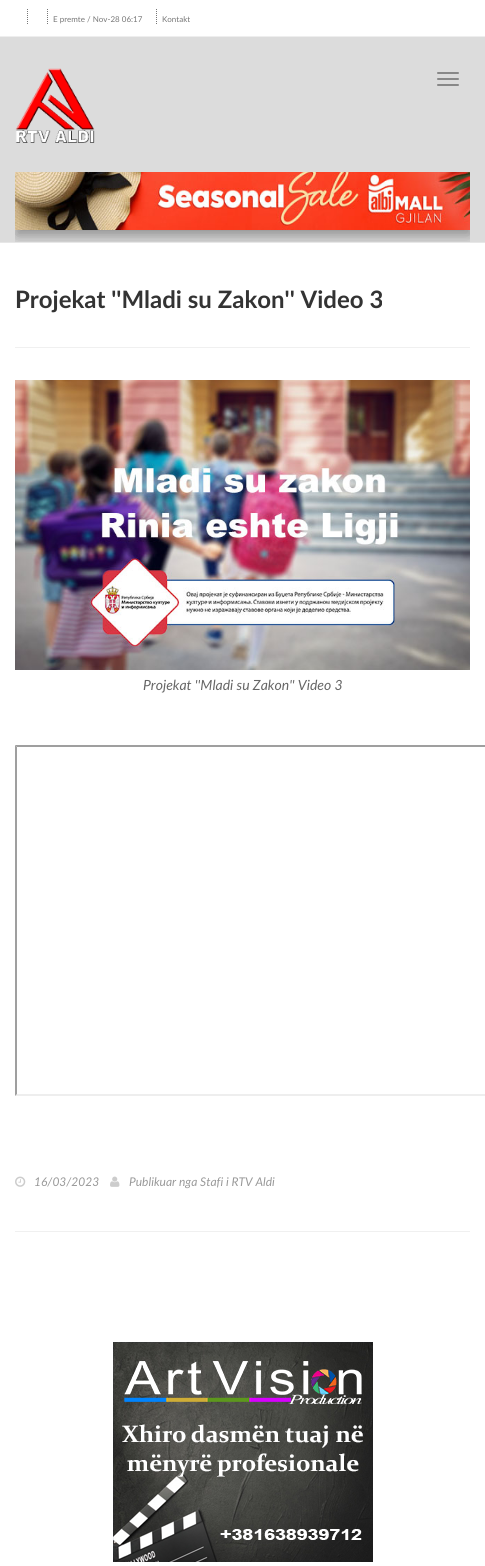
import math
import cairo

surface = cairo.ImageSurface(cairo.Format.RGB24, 485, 1566)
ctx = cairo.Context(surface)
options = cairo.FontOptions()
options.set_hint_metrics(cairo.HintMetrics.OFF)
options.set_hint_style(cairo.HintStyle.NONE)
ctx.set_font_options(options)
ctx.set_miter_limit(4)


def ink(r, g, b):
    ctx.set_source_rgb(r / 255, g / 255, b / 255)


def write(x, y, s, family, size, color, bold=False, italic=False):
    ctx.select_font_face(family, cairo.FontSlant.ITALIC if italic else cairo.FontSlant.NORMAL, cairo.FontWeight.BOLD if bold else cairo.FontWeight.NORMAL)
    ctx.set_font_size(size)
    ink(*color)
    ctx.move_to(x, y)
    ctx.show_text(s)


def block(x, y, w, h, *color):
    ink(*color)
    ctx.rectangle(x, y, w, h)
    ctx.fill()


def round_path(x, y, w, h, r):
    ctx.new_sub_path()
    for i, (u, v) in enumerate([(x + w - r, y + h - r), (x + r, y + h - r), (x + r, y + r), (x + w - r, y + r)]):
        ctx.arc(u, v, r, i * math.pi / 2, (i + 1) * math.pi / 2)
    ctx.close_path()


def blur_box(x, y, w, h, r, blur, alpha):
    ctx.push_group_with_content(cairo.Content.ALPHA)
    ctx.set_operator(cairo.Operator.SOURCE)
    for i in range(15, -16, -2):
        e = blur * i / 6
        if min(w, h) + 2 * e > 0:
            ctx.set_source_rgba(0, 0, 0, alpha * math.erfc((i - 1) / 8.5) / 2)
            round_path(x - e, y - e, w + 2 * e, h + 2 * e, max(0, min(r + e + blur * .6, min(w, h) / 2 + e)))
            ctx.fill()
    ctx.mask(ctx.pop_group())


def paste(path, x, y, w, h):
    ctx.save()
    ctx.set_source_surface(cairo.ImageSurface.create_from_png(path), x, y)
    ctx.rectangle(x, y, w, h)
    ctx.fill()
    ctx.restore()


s1 = dict(family="Lato", size=8, color=(119, 119, 119))
s2 = dict(family="Lato", size=24, color=(51, 51, 51), bold=True)
s3 = dict(family="Lato", size=14, color=(102, 102, 102), italic=True)
s4 = dict(family="Lato", size=12, color=(153, 153, 153), italic=True)

ink(255, 255, 255)
ctx.paint()
block(0, 36, 485, 1, 238, 238, 238)
ctx.new_path()
ctx.move_to(27.5, 9)
ctx.line_to(27.5, 25)
ctx.move_to(47.5, 9)
ctx.line_to(47.5, 25)
ink(119, 119, 119)
ctx.set_line_width(1)
ctx.set_dash([1, 1])
ctx.stroke()
write(53, 22, "E premte / Nov-28 06:17", **s1)
ctx.new_path()
ctx.move_to(156.5, 9)
ctx.line_to(156.5, 25)
ctx.stroke()
write(162, 22, "Kontakt", **s1)
block(0, 242, 485, 1, 231, 231, 231)
block(0, 37, 485, 205, 220, 220, 220)
paste("pic1.png", 15, 68, 80, 75)
ink(136, 136, 136)
round_path(437, 72, 22, 2, 1)
ctx.fill()
round_path(437, 78, 22, 2, 1)
ctx.fill()
round_path(437, 84, 22, 2, 1)
ctx.fill()
ctx.save()
ctx.rectangle(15, 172, 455, 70)
ctx.clip()
ink(0, 0, 0)
blur_box(15, 166, 455, 70, 0, 10, 0.19)
blur_box(17, 165, 455, 70, 0, 5, 0.2)
ctx.restore()
paste("pic2.png", 15, 172, 455, 58)
block(15, 347, 455, 1, 240, 240, 240)
write(15, 308, "Projekat ''Mladi su Zakon'' Video 3", **s2)
paste("pic3.png", 15, 380, 455, 290)
write(143, 690, "Projekat ''Mladi su Zakon'' Video 3", **s3)
ink(159, 159, 159)
ctx.new_path()
ctx.move_to(15, 745)
ctx.line_to(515, 745)
ctx.line_to(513, 747)
ctx.line_to(17, 747)
ctx.close_path()
ctx.fill()
ink(238, 238, 238)
ctx.new_path()
ctx.move_to(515, 1096)
ctx.line_to(15, 1096)
ctx.line_to(17, 1094)
ctx.line_to(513, 1094)
ctx.close_path()
ctx.fill()
ink(159, 159, 159)
ctx.new_path()
ctx.move_to(15, 1096)
ctx.line_to(15, 745)
ctx.line_to(17, 747)
ctx.line_to(17, 1094)
ctx.close_path()
ctx.fill()
block(15, 1231, 455, 1, 240, 240, 240)
paste("pic4.png", 15, 1176, 11, 11)
write(34, 1186, "16/03/2023", **s4)
paste("pic5.png", 110, 1176, 10, 11)
write(129, 1186, "Publikuar nga Stafi i RTV Aldi", **s4)
paste("pic6.png", 113, 1342, 260, 220)
surface.write_to_png("screenshot.png")
